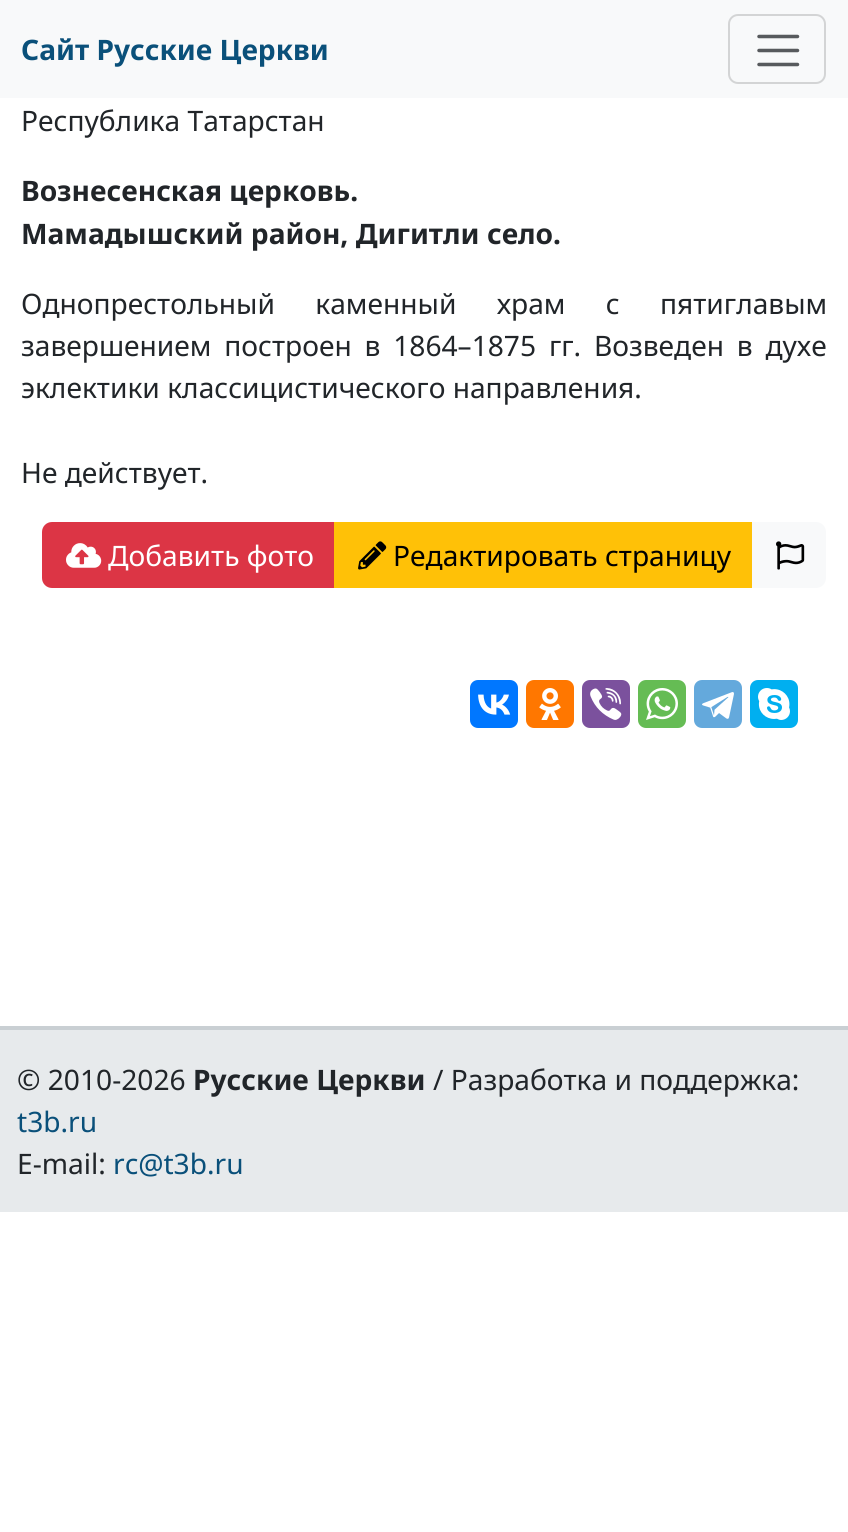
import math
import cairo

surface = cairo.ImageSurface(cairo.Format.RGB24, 848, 1532)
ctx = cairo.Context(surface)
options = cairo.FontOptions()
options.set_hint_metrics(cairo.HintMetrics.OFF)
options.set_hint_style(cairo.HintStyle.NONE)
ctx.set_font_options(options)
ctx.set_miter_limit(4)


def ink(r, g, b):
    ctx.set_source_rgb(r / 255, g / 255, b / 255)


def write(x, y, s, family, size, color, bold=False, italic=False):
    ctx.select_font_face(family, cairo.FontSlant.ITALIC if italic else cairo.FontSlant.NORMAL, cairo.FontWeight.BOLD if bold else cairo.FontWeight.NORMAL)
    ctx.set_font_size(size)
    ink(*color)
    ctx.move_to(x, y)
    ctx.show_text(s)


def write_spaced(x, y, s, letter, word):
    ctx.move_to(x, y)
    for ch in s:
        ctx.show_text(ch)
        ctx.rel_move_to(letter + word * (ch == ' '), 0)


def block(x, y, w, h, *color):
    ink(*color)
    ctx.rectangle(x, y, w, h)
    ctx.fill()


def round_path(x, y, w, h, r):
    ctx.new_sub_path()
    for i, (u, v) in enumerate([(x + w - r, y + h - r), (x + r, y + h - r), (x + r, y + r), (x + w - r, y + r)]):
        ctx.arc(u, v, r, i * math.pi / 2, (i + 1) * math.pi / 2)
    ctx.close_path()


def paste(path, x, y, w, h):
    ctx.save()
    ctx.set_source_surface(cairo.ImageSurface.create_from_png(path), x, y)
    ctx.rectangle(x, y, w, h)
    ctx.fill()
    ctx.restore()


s1 = dict(family="Noto Sans", size=28.15, color=(10, 80, 122), bold=True)
s2 = dict(family="Noto Sans", size=28.15, color=(33, 37, 41))
s3 = dict(family="Noto Sans", size=28.15, color=(33, 37, 41), bold=True)
s4 = dict(family="Noto Sans", size=28.15, color=(255, 255, 255))
s5 = dict(family="Noto Sans", size=28.15, color=(0, 0, 0))
s6 = dict(family="Noto Sans", size=28.15, color=(10, 80, 122))

ink(255, 255, 255)
ctx.paint()
block(0, 0, 848, 98, 248, 249, 250)
write(21, 60, "Сайт Русские Церкви", **s1)
round_path(729, 15, 96, 68, 9)
ink(211, 212, 213)
ctx.stroke()
ctx.new_path()
ctx.move_to(759, 36.5)
ctx.line_to(797.5, 36.5)
ctx.move_to(759, 50.5)
ctx.line_to(797.5, 50.5)
ctx.move_to(759, 64.5)
ctx.line_to(797.5, 64.5)
ink(87, 90, 93)
ctx.set_line_width(3.5)
ctx.set_line_cap(cairo.LineCap.ROUND)
ctx.stroke()
write(21, 131, "Республика Татарстан", **s2)
write(21, 201, "Вознесенская церковь.", **s3)
write(21, 244, "Мамадышский район, Дигитли село.", **s3)
ctx.select_font_face("Noto Sans")
write_spaced(21, 314, "Однопрестольный каменный храм с пятиглавым", 0, 33)
write_spaced(21, 356, "завершением построен в 1864–1875 гг. Возведен в духе", 0, 5.5)
write(21, 398, "эклектики классицистического направления.", **s2)
write(21, 483, "Не действует.", **s2)
ink(220, 53, 69)
ctx.new_path()
ctx.move_to(52, 523)
ctx.line_to(335, 523)
ctx.line_to(335, 587)
ctx.line_to(52, 587)
ctx.curve_to(47, 587, 43, 583, 43, 578)
ctx.line_to(43, 532)
ctx.curve_to(43, 527, 47, 523, 52, 523)
ctx.close_path()
ctx.fill_preserve()
ctx.set_line_width(2)
ctx.set_line_cap(cairo.LineCap.BUTT)
ctx.stroke()
paste("pic1.png", 66, 543, 36, 25)
write(108, 566, "Добавить фото", **s4)
block(334, 522, 418, 66, 255, 193, 7)
paste("pic2.png", 358, 541, 29, 29)
write(393, 566, "Редактировать страницу", **s5)
ink(248, 249, 250)
ctx.new_path()
ctx.move_to(752, 522)
ctx.line_to(816, 522)
ctx.curve_to(821.5, 522, 826, 526.5, 826, 532)
ctx.line_to(826, 578)
ctx.curve_to(826, 583.5, 821.5, 588, 816, 588)
ctx.line_to(752, 588)
ctx.close_path()
ctx.fill()
paste("pic3.png", 776, 541, 29, 29)
ink(0, 119, 255)
round_path(470, 680, 48, 48, 8)
ctx.fill()
paste("pic4.png", 478, 694, 33, 21)
ink(255, 119, 0)
round_path(526, 680, 48, 48, 8)
ctx.fill()
paste("pic5.png", 539, 688, 22, 32)
ink(123, 81, 157)
round_path(582, 680, 48, 48, 8)
ctx.fill()
paste("pic6.png", 590, 688, 32, 32)
ink(101, 188, 84)
round_path(638, 680, 48, 48, 8)
ctx.fill()
paste("pic7.png", 646, 688, 32, 32)
ink(100, 169, 220)
round_path(694, 680, 48, 48, 8)
ctx.fill()
paste("pic8.png", 702, 692, 32, 27)
ink(0, 175, 240)
round_path(750, 680, 48, 48, 8)
ctx.fill()
paste("pic9.png", 758, 688, 32, 32)
block(0, 1030, 848, 182, 231, 234, 236)
block(0, 1026, 848, 4, 201, 207, 211)
write(17, 1090, "© 2010-2026", **s2)
write(193, 1090, "Русские Церкви", **s3)
write(433, 1090, "/ Разработка и поддержка:", **s2)
write(17, 1132, "t3b.ru", **s6)
write(17, 1174, "E-mail:", **s2)
write(113, 1174, "rc@t3b.ru", **s6)
surface.write_to_png("screenshot.png")
